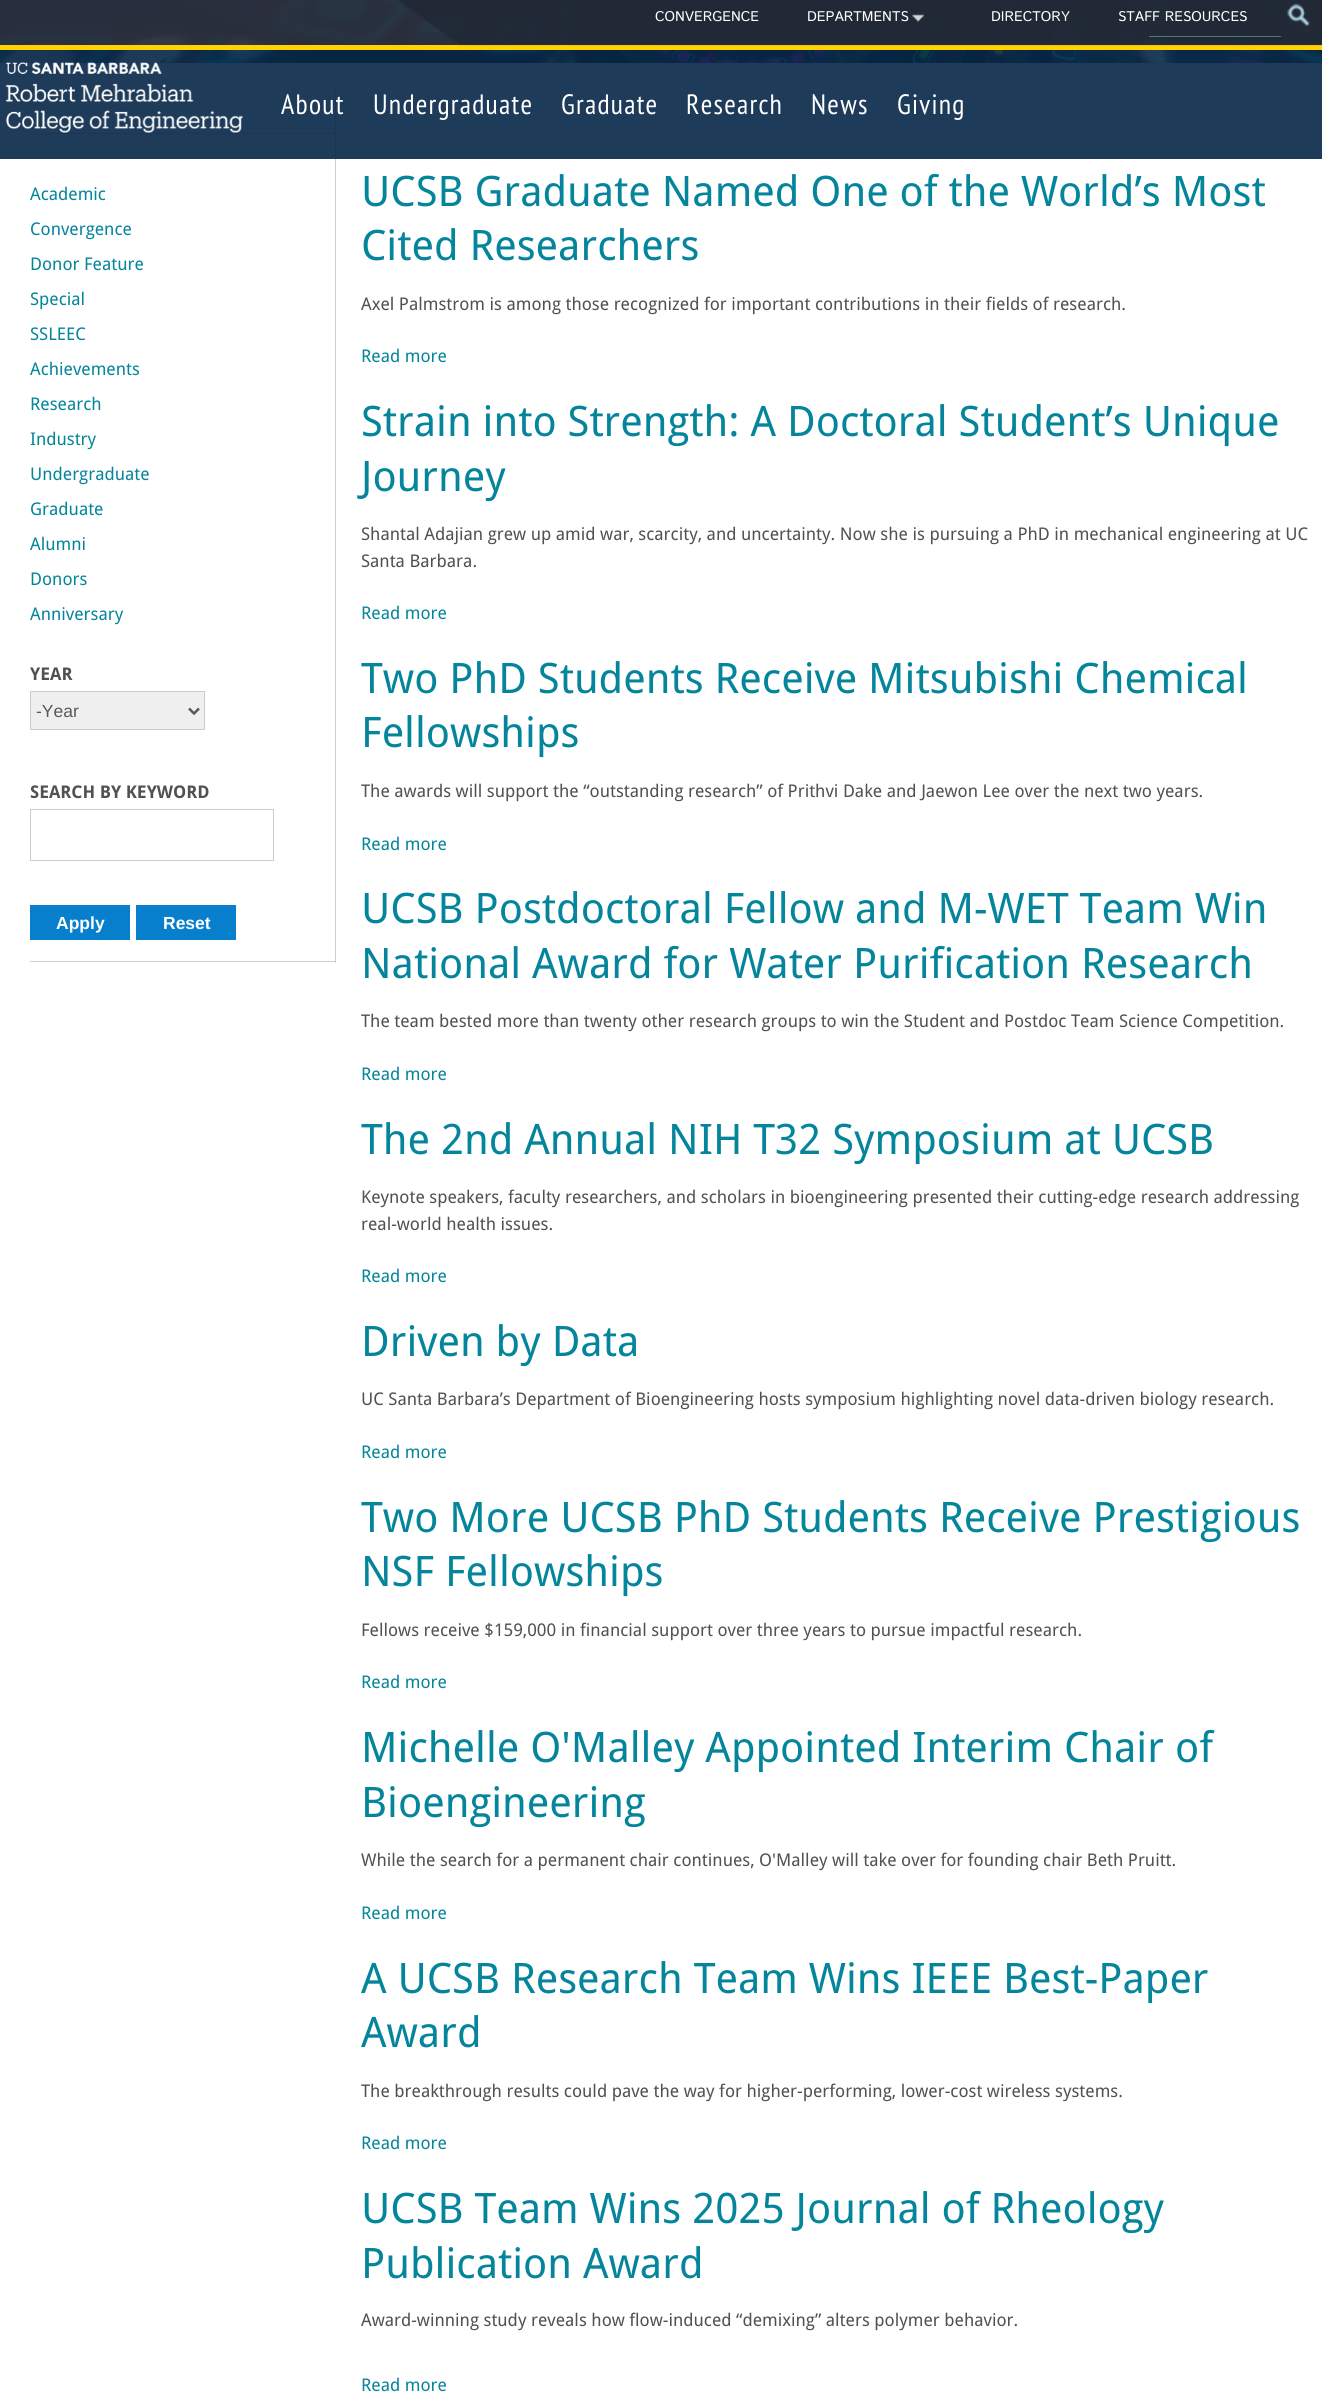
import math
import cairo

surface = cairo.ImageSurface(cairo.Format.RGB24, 1322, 2401)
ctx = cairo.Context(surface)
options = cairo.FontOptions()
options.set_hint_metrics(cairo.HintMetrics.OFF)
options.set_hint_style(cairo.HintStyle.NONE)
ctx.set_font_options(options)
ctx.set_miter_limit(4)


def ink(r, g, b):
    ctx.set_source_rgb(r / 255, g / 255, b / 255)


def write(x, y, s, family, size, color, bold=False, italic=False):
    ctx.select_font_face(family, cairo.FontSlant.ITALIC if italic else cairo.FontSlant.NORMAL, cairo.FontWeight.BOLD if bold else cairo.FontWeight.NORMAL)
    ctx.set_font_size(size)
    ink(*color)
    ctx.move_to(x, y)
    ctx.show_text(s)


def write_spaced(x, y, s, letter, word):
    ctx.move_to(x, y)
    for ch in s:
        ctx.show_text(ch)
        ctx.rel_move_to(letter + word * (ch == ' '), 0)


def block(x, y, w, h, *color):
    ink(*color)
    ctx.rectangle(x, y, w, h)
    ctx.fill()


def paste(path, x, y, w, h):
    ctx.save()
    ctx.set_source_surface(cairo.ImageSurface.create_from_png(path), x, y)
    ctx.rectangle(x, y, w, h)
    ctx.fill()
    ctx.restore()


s1 = dict(family="Istok Web", size=14, color=(255, 255, 255))
s2 = dict(family="Droid Sans", size=17.5, color=(4, 133, 155))
s3 = dict(family="Droid Sans", size=17.5, color=(81, 81, 81), bold=True)
s4 = dict(family="Liberation Sans", size=17.5, color=(89, 89, 89))
s5 = dict(family="Liberation Sans", size=17.5, color=(255, 255, 255), bold=True)
s6 = dict(family="Droid Sans", size=42, color=(4, 133, 155))
s7 = dict(family="Droid Sans", size=17.5, color=(81, 81, 81))

ink(255, 255, 255)
ctx.paint()
paste("pic1.png", 0, 0, 1322, 63)
ctx.set_source_rgba(0.161, 0.188, 0.243, 0.95)
ctx.rectangle(0, 0, 1322, 45)
ctx.fill()
block(0, 45, 1322, 5, 255, 210, 0)
paste("pic2.png", 398, 0, 924, 46)
paste("pic3.png", 1287, 3, 23, 24)
block(1149, 36, 132, 1, 80, 117, 123)
write(655, 21, "CONVERGENCE", **s1)
write(807, 21, "DEPARTMENTS", **s1)
paste("pic4.png", 912, 14, 12, 8)
write(991, 21, "DIRECTORY", **s1)
write(1118, 21, "STAFF RESOURCES", **s1)
block(335, 89, 1, 874, 207, 207, 207)
block(30, 133, 306, 1, 207, 207, 207)
ctx.set_source_rgba(0.024, 0.149, 0.278, 0.9)
ctx.rectangle(0, 50, 1322, 109)
ctx.fill()
paste("pic5.png", 6, 62, 237, 71)
ctx.select_font_face("PT Sans Narrow")
ctx.set_font_size(28)
ink(255, 255, 255)
write_spaced(281, 114, "About", 1.25, 0)
write_spaced(373, 114, "Undergraduate", 1.25, 0)
write_spaced(561, 114, "Graduate", 1.25, 0)
write_spaced(686, 114, "Research", 1.25, 0)
write_spaced(811, 114, "News", 1.25, 0)
write_spaced(897, 114, "Giving", 1.25, 0)
block(30, 961, 306, 1, 207, 207, 207)
write(30, 200, "Academic", **s2)
write(30, 235, "Convergence", **s2)
write(30, 270, "Donor Feature", **s2)
write(30, 305, "Special", **s2)
write(30, 340, "SSLEEC", **s2)
write(30, 375, "Achievements", **s2)
write(30, 410, "Research", **s2)
write(30, 445, "Industry", **s2)
write(30, 480, "Undergraduate", **s2)
write(30, 515, "Graduate", **s2)
write(30, 550, "Alumni", **s2)
write(30, 585, "Donors", **s2)
write(30, 620, "Anniversary", **s2)
write(30, 680, "YEAR", **s3)
ink(239, 239, 239)
ctx.rectangle(30.5, 691.5, 174, 38)
ctx.fill_preserve()
ink(204, 204, 204)
ctx.set_line_width(1)
ctx.stroke()
ctx.new_path()
ctx.move_to(189, 708.5)
ctx.line_to(194, 713.5)
ctx.line_to(199, 708.5)
ink(89, 89, 89)
ctx.set_line_width(2.5)
ctx.stroke()
write(36, 717, "-Year", **s4)
write(30, 798, "SEARCH BY KEYWORD", **s3)
ctx.rectangle(30.5, 809.5, 243, 51)
ink(204, 204, 204)
ctx.set_line_width(1)
ctx.stroke()
block(30, 905, 100, 35, 7, 127, 205)
write(56, 929, "Apply", **s5)
block(136, 905, 100, 35, 7, 127, 205)
write(163, 929, "Reset", **s5)
write(361, 206, "UCSB Graduate Named One of the World’s Most", **s6)
write(361, 260, "Cited Researchers", **s6)
write(361, 310, "Axel Palmstrom is among those recognized for important contributions in their fields of research.", **s7)
write(361, 362, "Read more", **s2)
write(361, 436, "Strain into Strength: A Doctoral Student’s Unique", **s6)
write(361, 491, "Journey", **s6)
write(361, 540, "Shantal Adajian grew up amid war, scarcity, and uncertainty. Now she is pursuing a PhD in mechanical engineering at UC", **s7)
write(361, 567, "Santa Barbara.", **s7)
write(361, 619, "Read more", **s2)
write(361, 693, "Two PhD Students Receive Mitsubishi Chemical", **s6)
write(361, 747, "Fellowships", **s6)
write(361, 797, "The awards will support the “outstanding research” of Prithvi Dake and Jaewon Lee over the next two years.", **s7)
write(361, 850, "Read more", **s2)
write(361, 923, "UCSB Postdoctoral Fellow and M-WET Team Win", **s6)
write(361, 978, "National Award for Water Purification Research", **s6)
write(361, 1027, "The team bested more than twenty other research groups to win the Student and Postdoc Team Science Competition.", **s7)
write(361, 1080, "Read more", **s2)
write(361, 1154, "The 2nd Annual NIH T32 Symposium at UCSB", **s6)
write(361, 1203, "Keynote speakers, faculty researchers, and scholars in bioengineering presented their cutting-edge research addressing", **s7)
write(361, 1230, "real-world health issues.", **s7)
write(361, 1282, "Read more", **s2)
write(361, 1356, "Driven by Data", **s6)
write(361, 1405, "UC Santa Barbara’s Department of Bioengineering hosts symposium highlighting novel data-driven biology research.", **s7)
write(361, 1458, "Read more", **s2)
write(361, 1532, "Two More UCSB PhD Students Receive Prestigious", **s6)
write(361, 1586, "NSF Fellowships", **s6)
write(361, 1636, "Fellows receive $159,000 in financial support over three years to pursue impactful research.", **s7)
write(361, 1688, "Read more", **s2)
write(361, 1762, "Michelle O'Malley Appointed Interim Chair of", **s6)
write(361, 1817, "Bioengineering", **s6)
write(361, 1866, "While the search for a permanent chair continues, O'Malley will take over for founding chair Beth Pruitt.", **s7)
write(361, 1919, "Read more", **s2)
write(361, 1993, "A UCSB Research Team Wins IEEE Best-Paper", **s6)
write(361, 2047, "Award", **s6)
write(361, 2097, "The breakthrough results could pave the way for higher-performing, lower-cost wireless systems.", **s7)
write(361, 2149, "Read more", **s2)
write(361, 2223, "UCSB Team Wins 2025 Journal of Rheology", **s6)
write(361, 2278, "Publication Award", **s6)
write(361, 2326, "Award-winning study reveals how flow-induced “demixing” alters polymer behavior.", **s7)
write(361, 2391, "Read more", **s2)
surface.write_to_png("screenshot.png")
